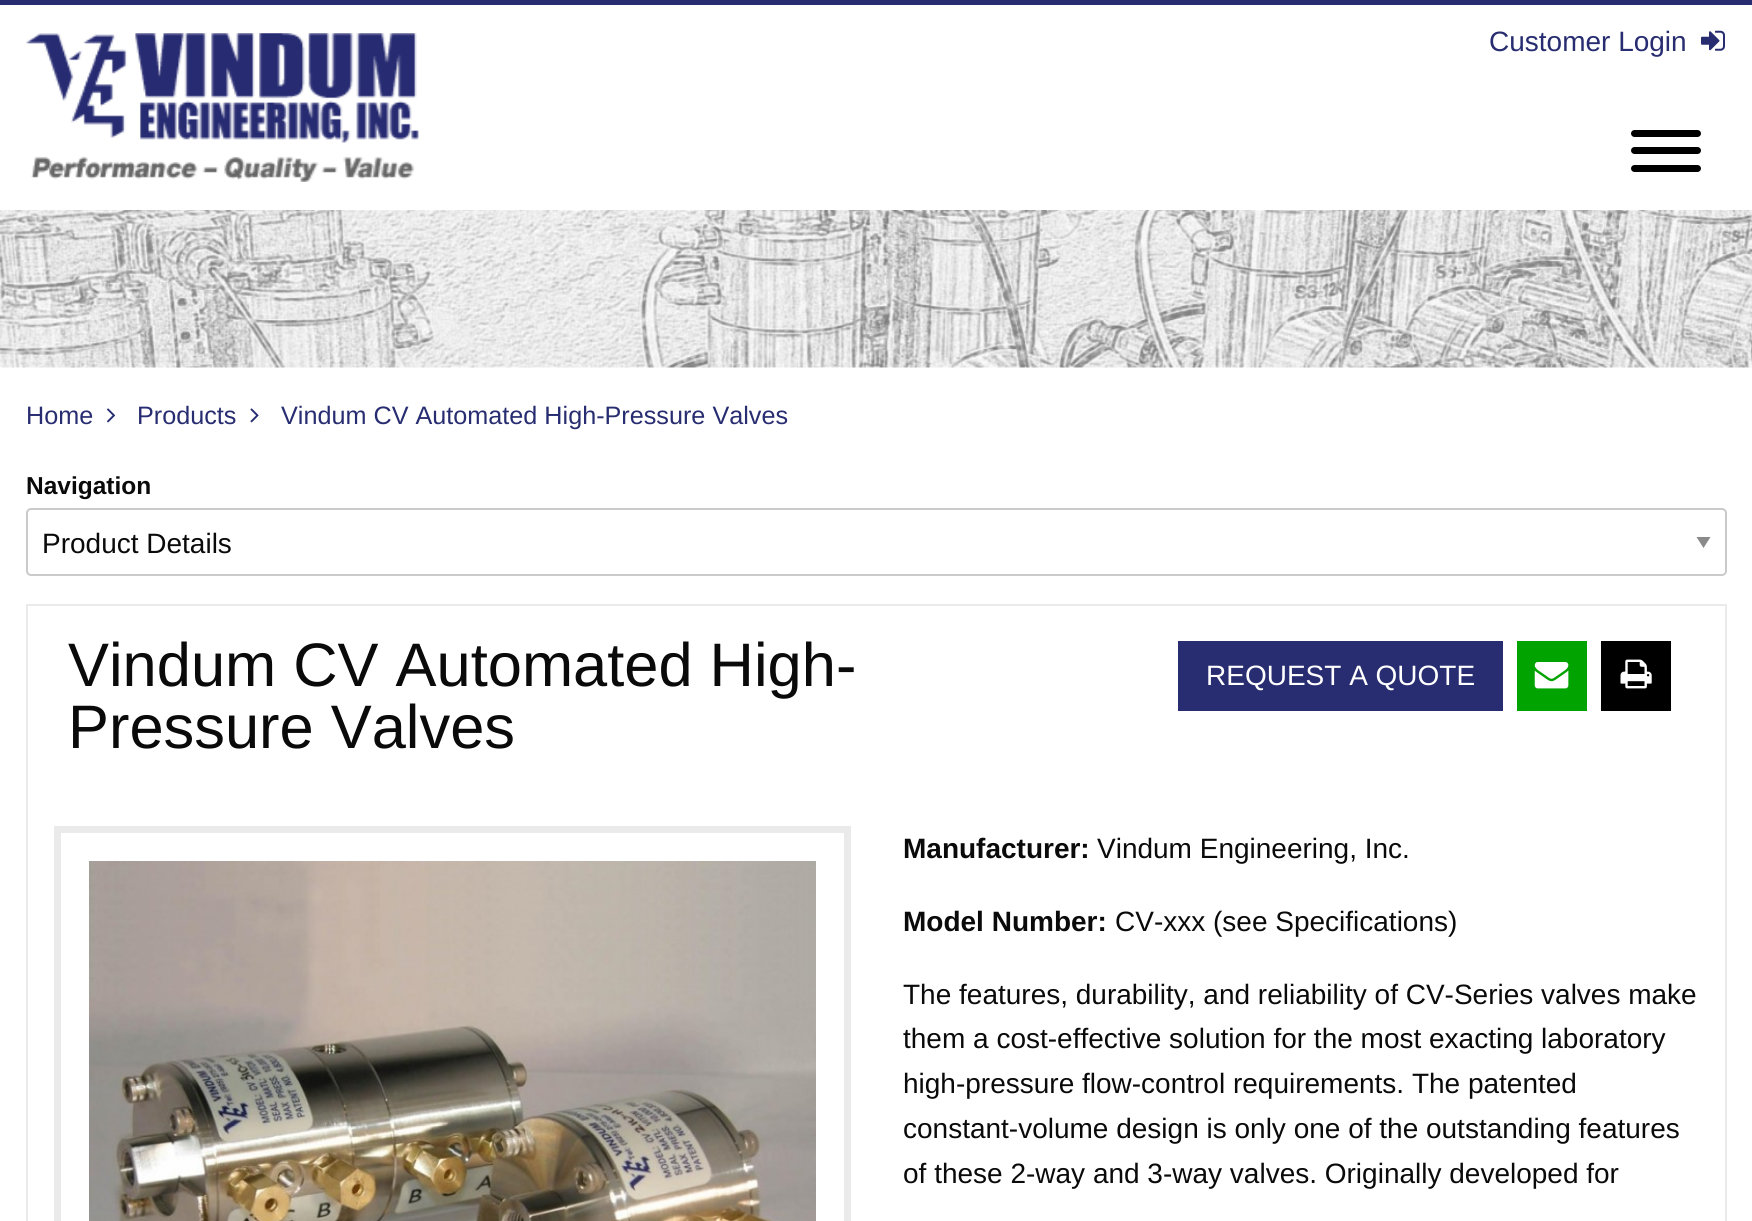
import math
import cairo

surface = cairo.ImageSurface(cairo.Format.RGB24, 1752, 1221)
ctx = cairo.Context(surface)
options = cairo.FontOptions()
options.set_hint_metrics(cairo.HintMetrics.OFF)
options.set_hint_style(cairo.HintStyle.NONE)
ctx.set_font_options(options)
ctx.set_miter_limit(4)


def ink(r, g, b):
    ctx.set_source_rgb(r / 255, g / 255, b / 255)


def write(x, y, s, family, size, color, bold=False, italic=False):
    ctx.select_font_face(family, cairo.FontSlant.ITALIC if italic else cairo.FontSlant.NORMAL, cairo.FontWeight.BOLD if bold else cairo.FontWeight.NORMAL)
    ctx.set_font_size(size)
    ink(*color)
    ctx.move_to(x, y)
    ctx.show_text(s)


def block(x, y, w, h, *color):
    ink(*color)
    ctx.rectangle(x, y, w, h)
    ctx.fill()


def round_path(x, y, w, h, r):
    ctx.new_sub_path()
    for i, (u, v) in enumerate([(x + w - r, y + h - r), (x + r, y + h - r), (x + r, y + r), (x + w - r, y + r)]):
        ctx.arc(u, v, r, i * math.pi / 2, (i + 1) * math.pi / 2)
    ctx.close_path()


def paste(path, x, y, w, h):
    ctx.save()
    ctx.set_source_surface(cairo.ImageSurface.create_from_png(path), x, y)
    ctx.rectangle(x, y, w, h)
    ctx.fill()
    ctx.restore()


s1 = dict(family="Liberation Sans", size=28, color=(39, 45, 112))
s2 = dict(family="Liberation Sans", size=25.2, color=(39, 45, 112))
s3 = dict(family="Liberation Sans", size=24.5, color=(10, 10, 10), bold=True)
s4 = dict(family="Liberation Sans", size=28, color=(10, 10, 10))
s5 = dict(family="Liberation Sans", size=61.4, color=(10, 10, 10))
s6 = dict(family="Liberation Sans", size=28, color=(255, 255, 255))
s7 = dict(family="Liberation Sans", size=28, color=(10, 10, 10), bold=True)

ink(255, 255, 255)
ctx.paint()
block(0, 0, 1752, 5, 39, 45, 112)
write(1489, 51, "Customer Login", **s1)
paste("pic1.png", 1701, 30, 24, 21)
paste("pic2.png", 26, 33, 393, 149)
ink(0, 0, 0)
round_path(1631, 147, 70, 7, 3.5)
ctx.fill()
round_path(1631, 130, 70, 7, 3.5)
ctx.fill()
round_path(1631, 165, 70, 7, 3.5)
ctx.fill()
paste("pic3.png", 0, 210, 1752, 158)
write(26, 424, "Home", **s2)
paste("pic4.png", 107, 408, 9, 15)
write(137, 424, "Products", **s2)
paste("pic5.png", 250, 408, 9, 15)
write(281, 424, "Vindum CV Automated High-Pressure Valves", **s2)
write(26, 494, "Navigation", **s3)
ink(138, 138, 138)
ctx.new_path()
ctx.move_to(1696.5, 537)
ctx.line_to(1710.5, 537)
ctx.line_to(1703.5, 548)
ctx.close_path()
ctx.fill()
round_path(27, 509, 1699, 66, 4)
ink(202, 202, 202)
ctx.stroke()
write(42, 553, "Product Details", **s4)
ctx.rectangle(27, 605, 1699, 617)
ink(235, 234, 234)
ctx.stroke()
write(68, 686, "Vindum CV Automated High-", **s5)
write(68, 748, "Pressure Valves", **s5)
block(1178, 641, 325, 70, 39, 45, 112)
write(1206, 685, "REQUEST A QUOTE", **s6)
block(1517, 641, 70, 70, 0, 163, 0)
paste("pic6.png", 1534, 662, 35, 27)
block(1601, 641, 70, 70, 0, 0, 0)
paste("pic7.png", 1620, 659, 32, 30)
ctx.rectangle(57.5, 829.5, 790, 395)
ink(235, 234, 234)
ctx.set_line_width(7)
ctx.stroke()
paste("pic8.png", 89, 861, 727, 360)
write(903, 858, "Manufacturer:", **s7)
write(1097, 858, "Vindum Engineering, Inc.", **s4)
write(903, 931, "Model Number:", **s7)
write(1115, 931, "CV-xxx (see Specifications)", **s4)
write(903, 1004, "The features, durability, and reliability of CV-Series valves make", **s4)
write(903, 1048, "them a cost-effective solution for the most exacting laboratory", **s4)
write(903, 1093, "high-pressure flow-control requirements. The patented", **s4)
write(903, 1138, "constant-volume design is only one of the outstanding features", **s4)
write(903, 1183, "of these 2-way and 3-way valves. Originally developed for", **s4)
surface.write_to_png("screenshot.png")
